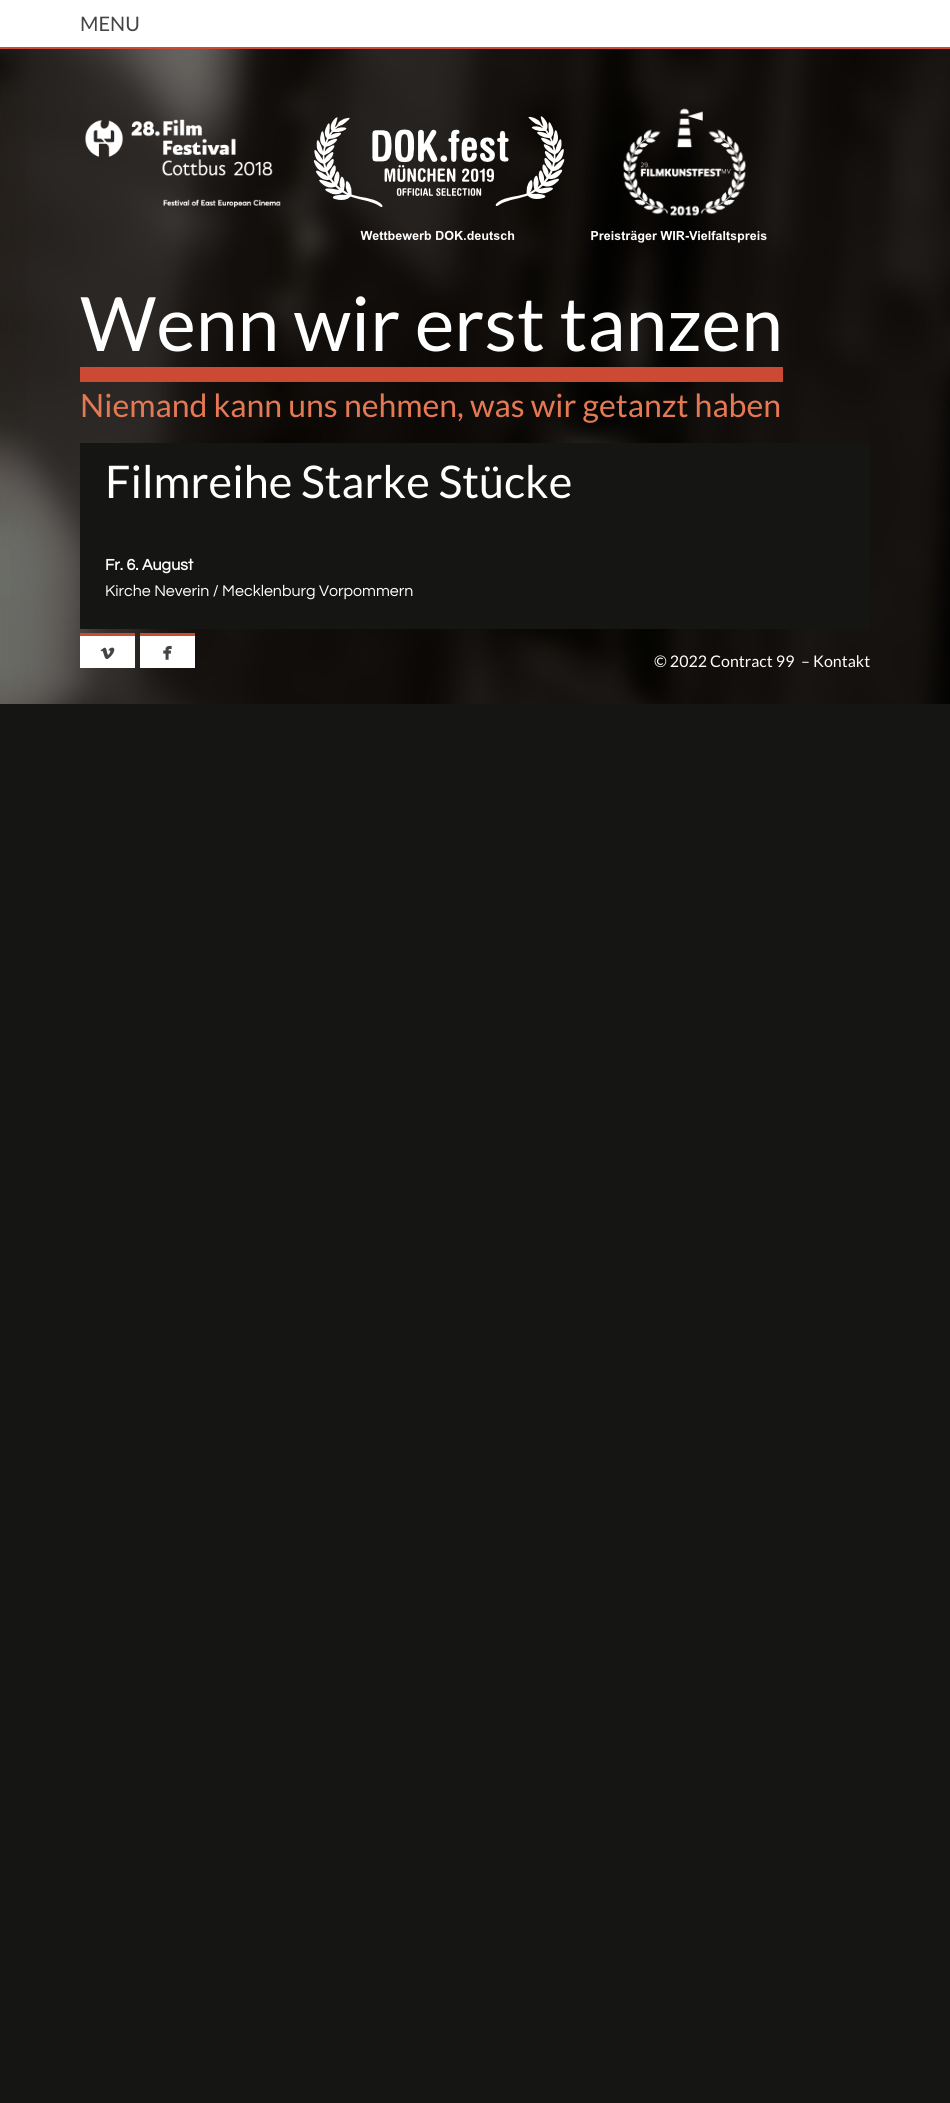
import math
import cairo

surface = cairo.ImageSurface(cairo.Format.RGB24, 950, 2103)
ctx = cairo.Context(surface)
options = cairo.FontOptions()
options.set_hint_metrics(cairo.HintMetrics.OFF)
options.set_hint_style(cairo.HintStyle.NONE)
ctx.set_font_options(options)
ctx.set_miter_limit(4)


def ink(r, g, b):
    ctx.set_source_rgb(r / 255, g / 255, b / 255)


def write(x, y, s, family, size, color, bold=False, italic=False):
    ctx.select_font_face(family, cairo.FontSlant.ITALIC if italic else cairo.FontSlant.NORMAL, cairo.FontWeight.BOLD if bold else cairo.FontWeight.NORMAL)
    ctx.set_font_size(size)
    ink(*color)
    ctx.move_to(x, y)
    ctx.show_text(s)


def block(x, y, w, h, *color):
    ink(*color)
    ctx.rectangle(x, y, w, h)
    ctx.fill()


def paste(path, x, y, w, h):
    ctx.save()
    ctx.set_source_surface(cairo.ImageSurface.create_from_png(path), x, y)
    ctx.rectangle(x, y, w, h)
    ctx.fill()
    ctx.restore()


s1 = dict(family="Lato", size=20, color=(68, 68, 68))
s2 = dict(family="Lato", size=75, color=(255, 255, 255))
s3 = dict(family="Lato", size=32, color=(229, 121, 83))
s4 = dict(family="Lato", size=45, color=(255, 255, 255))
s5 = dict(family="Questrial", size=16, color=(255, 255, 255), bold=True)
s6 = dict(family="Questrial", size=16, color=(255, 255, 255))
s7 = dict(family="Lato", size=16, color=(255, 255, 255))

ink(21, 21, 20)
ctx.paint()
block(0, 0, 950, 47, 255, 255, 255)
block(0, 47, 950, 2, 204, 73, 51)
write(80, 31, "MENU", **s1)
paste("pic1.png", 0, 49, 950, 655)
paste("pic2.png", 85, 108, 682, 135)
write(80, 351, "Wenn wir erst tanzen", **s2)
block(80, 367, 703, 15, 204, 73, 51)
write(80, 417, "Niemand kann uns nehmen, was wir getanzt haben", **s3)
block(80, 443, 790, 186, 21, 21, 20)
write(105, 498, "Filmreihe Starke Stücke", **s4)
write(105, 570, "Fr. 6. August", **s5)
write(105, 596, "Kirche Neverin / Mecklenburg Vorpommern", **s6)
block(80, 633, 55, 3, 204, 73, 51)
block(140, 633, 55, 3, 204, 73, 51)
block(80, 636, 55, 32, 255, 255, 255)
block(140, 636, 55, 32, 255, 255, 255)
paste("pic3.png", 100, 647, 15, 13)
paste("pic4.png", 163, 645, 9, 15)
write(654, 667, "© 2022 Contract 99", **s7)
write(801, 667, "– Kontakt", **s7)
surface.write_to_png("screenshot.png")
